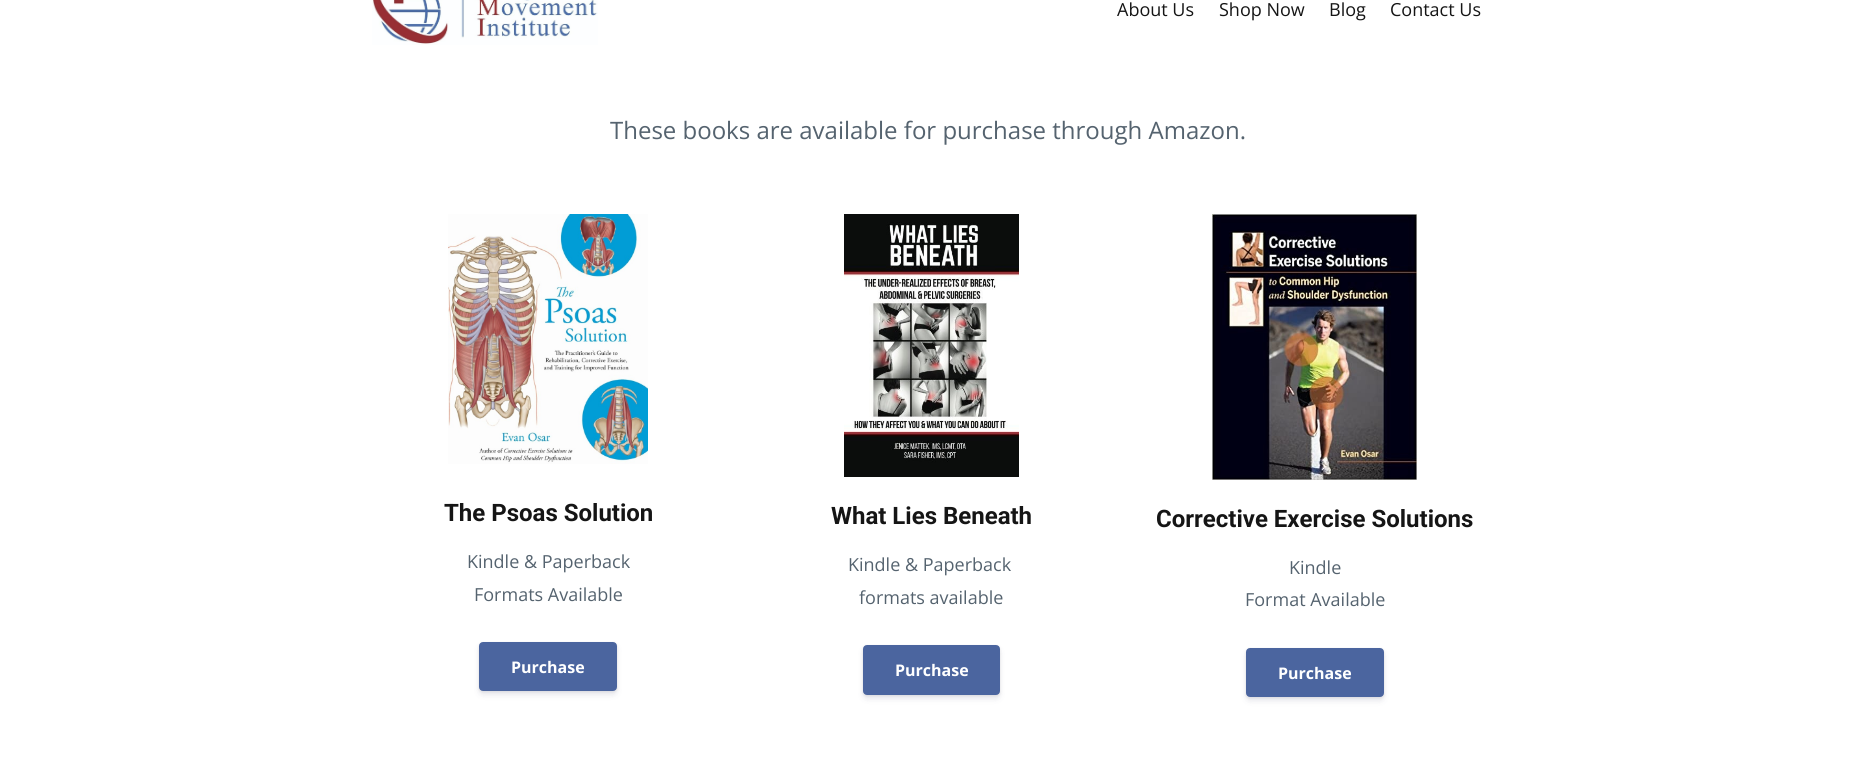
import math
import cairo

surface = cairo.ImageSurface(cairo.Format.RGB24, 1863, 778)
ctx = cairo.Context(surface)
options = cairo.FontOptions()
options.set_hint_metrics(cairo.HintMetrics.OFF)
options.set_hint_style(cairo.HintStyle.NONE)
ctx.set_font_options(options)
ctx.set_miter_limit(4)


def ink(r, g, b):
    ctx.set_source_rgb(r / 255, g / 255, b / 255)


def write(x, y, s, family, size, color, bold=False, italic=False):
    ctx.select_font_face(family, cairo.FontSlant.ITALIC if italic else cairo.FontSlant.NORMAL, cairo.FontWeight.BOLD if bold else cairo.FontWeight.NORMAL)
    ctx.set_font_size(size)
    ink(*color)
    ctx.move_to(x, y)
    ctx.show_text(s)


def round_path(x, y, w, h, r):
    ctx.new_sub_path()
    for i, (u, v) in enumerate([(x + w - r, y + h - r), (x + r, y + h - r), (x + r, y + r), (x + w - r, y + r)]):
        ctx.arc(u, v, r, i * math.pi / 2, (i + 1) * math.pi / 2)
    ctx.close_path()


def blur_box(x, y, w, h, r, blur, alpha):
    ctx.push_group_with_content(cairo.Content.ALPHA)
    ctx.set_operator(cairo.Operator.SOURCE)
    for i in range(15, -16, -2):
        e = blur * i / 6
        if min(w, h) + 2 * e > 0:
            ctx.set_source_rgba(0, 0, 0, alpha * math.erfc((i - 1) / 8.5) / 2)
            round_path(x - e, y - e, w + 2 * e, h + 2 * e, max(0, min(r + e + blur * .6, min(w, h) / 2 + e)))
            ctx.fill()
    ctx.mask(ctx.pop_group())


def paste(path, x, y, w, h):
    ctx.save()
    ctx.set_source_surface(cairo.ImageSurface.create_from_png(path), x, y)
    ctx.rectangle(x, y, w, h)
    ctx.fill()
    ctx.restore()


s1 = dict(family="Open Sans", size=18, color=(21, 21, 21))
s2 = dict(family="Open Sans", size=24, color=(85, 99, 111))
s3 = dict(family="Roboto", size=24, color=(21, 21, 21), bold=True)
s4 = dict(family="Open Sans", size=18, color=(85, 99, 111))
s5 = dict(family="Open Sans", size=16, color=(255, 255, 255), bold=True)

ink(255, 255, 255)
ctx.paint()
paste("pic1.png", 372, 0, 226, 45)
write(1117, 16, "About Us", **s1)
write(1219, 16, "Shop Now", **s1)
write(1329, 16, "Blog", **s1)
write(1390, 16, "Contact Us", **s1)
write(610, 139, "These books are available for purchase through Amazon.", **s2)
paste("pic2.png", 448, 214, 200, 250)
write(444, 521, "The Psoas Solution", **s3)
write(467, 568, "Kindle & Paperback", **s4)
write(474, 601, "Formats Available", **s4)
ink(0, 0, 0)
blur_box(479, 643, 138, 49, 4, 1.5, 0.08)
ink(50, 50, 93)
blur_box(479, 646, 138, 49, 4, 3, 0.11)
ink(75, 101, 159)
round_path(480, 643, 136, 47, 3)
ctx.fill_preserve()
ctx.stroke()
write(511, 673, "Purchase", **s5)
paste("pic3.png", 844, 214, 175, 263)
write(831, 524, "What Lies Beneath", **s3)
write(848, 571, "Kindle & Paperback", **s4)
write(859, 604, "formats available", **s4)
ink(0, 0, 0)
blur_box(863, 646, 137, 50, 4, 1.5, 0.08)
ink(50, 50, 93)
blur_box(863, 649, 137, 50, 4, 3, 0.11)
ink(75, 101, 159)
round_path(864, 646, 135, 48, 3)
ctx.fill_preserve()
ctx.stroke()
write(895, 676, "Purchase", **s5)
paste("pic4.png", 1212, 214, 205, 266)
write(1156, 527, "Corrective Exercise Solutions", **s3)
write(1289, 574, "Kindle", **s4)
write(1245, 606, "Format Available", **s4)
ink(0, 0, 0)
blur_box(1246, 649, 138, 49, 4, 1.5, 0.08)
ink(50, 50, 93)
blur_box(1246, 652, 138, 49, 4, 3, 0.11)
ink(75, 101, 159)
round_path(1247, 649, 136, 47, 3)
ctx.fill_preserve()
ctx.stroke()
write(1278, 679, "Purchase", **s5)
surface.write_to_png("screenshot.png")
